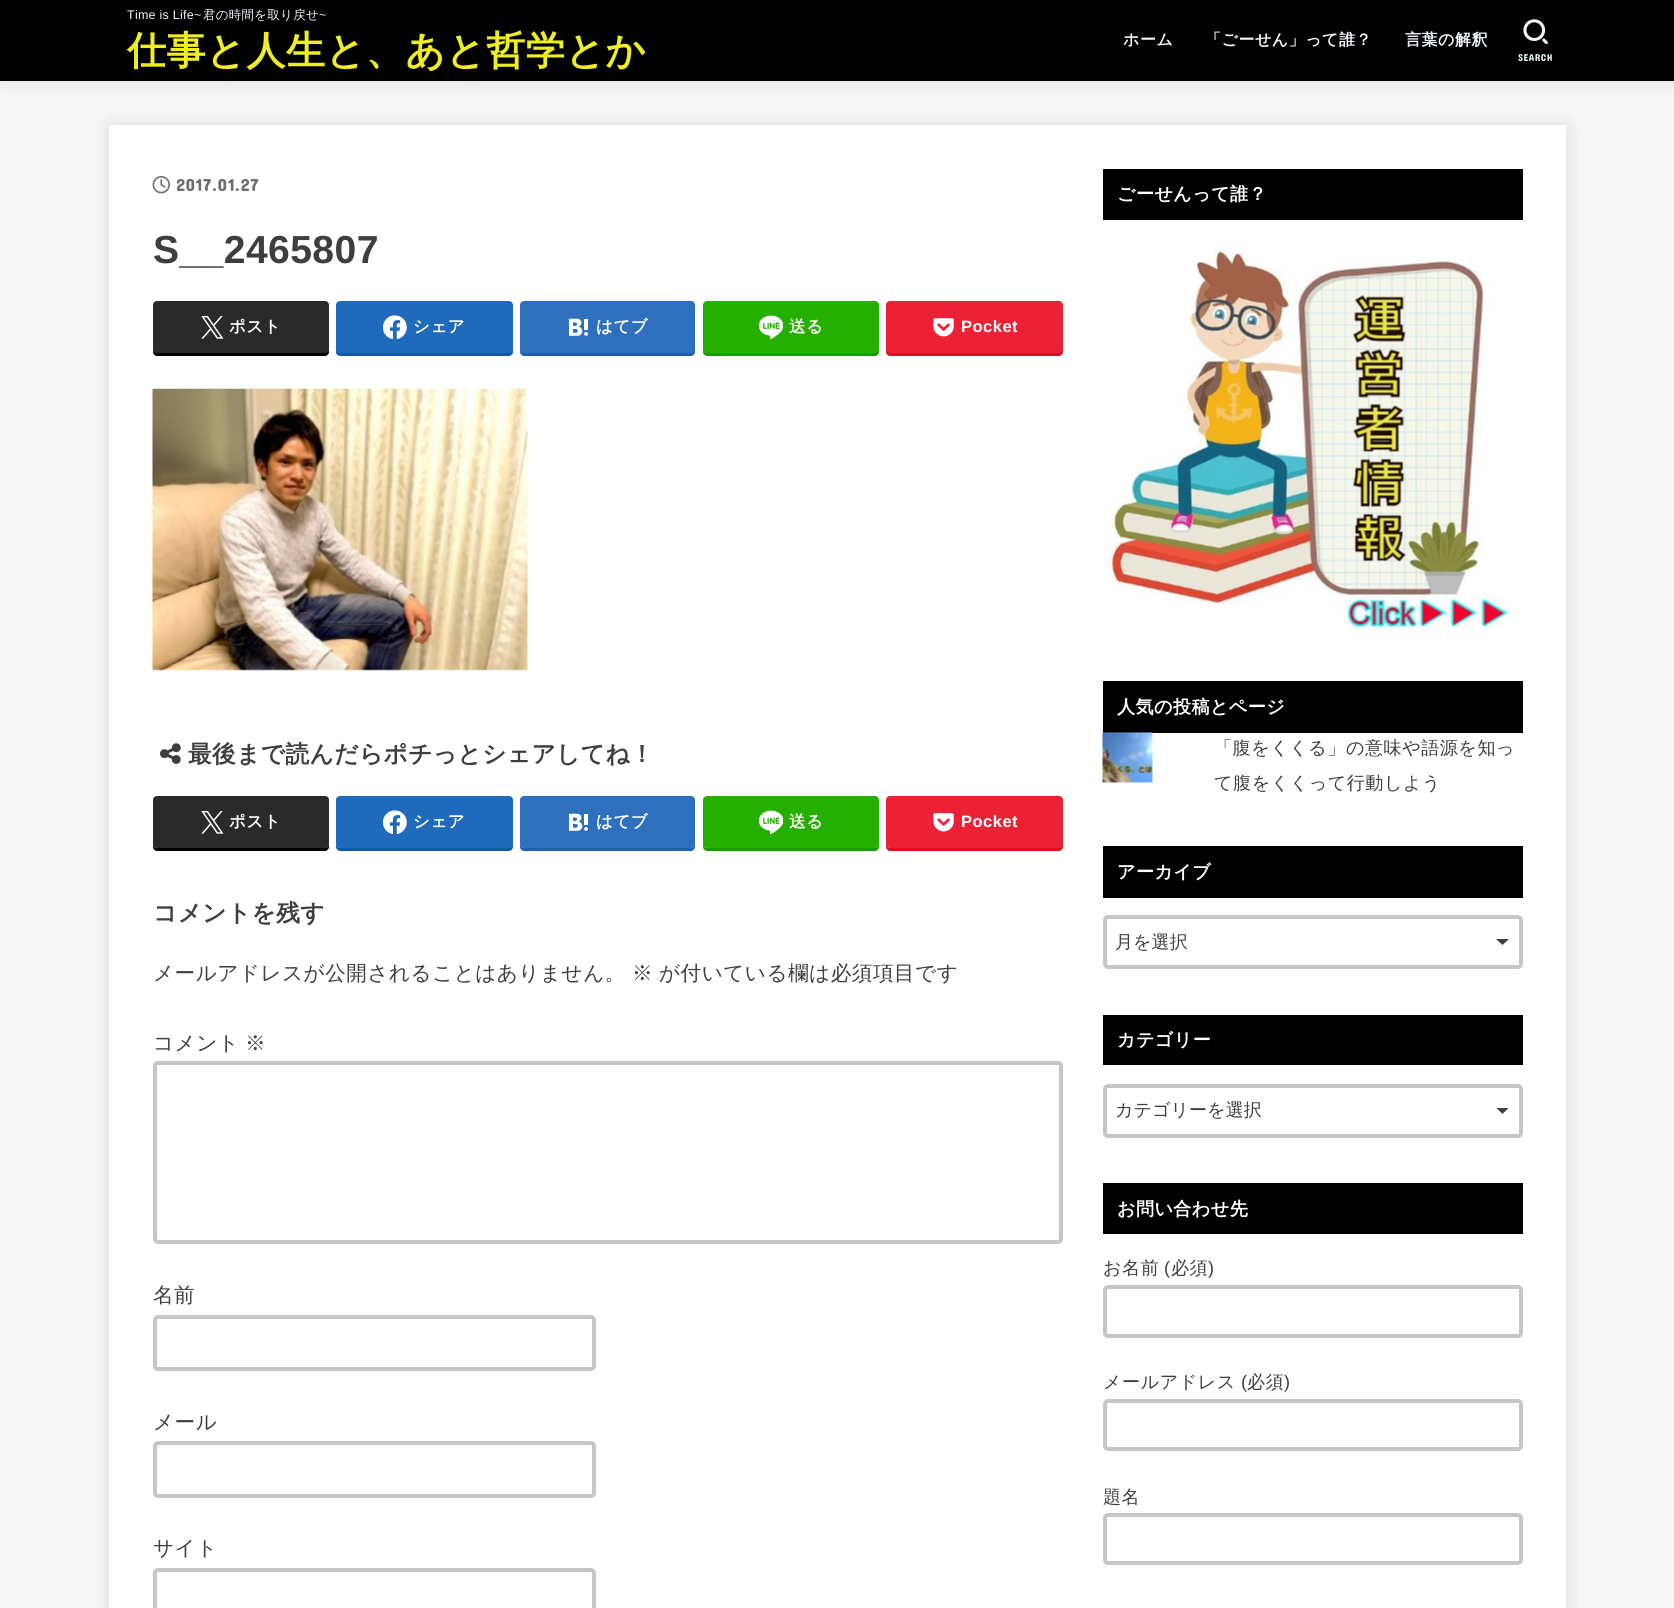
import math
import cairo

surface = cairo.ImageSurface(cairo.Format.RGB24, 1674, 1608)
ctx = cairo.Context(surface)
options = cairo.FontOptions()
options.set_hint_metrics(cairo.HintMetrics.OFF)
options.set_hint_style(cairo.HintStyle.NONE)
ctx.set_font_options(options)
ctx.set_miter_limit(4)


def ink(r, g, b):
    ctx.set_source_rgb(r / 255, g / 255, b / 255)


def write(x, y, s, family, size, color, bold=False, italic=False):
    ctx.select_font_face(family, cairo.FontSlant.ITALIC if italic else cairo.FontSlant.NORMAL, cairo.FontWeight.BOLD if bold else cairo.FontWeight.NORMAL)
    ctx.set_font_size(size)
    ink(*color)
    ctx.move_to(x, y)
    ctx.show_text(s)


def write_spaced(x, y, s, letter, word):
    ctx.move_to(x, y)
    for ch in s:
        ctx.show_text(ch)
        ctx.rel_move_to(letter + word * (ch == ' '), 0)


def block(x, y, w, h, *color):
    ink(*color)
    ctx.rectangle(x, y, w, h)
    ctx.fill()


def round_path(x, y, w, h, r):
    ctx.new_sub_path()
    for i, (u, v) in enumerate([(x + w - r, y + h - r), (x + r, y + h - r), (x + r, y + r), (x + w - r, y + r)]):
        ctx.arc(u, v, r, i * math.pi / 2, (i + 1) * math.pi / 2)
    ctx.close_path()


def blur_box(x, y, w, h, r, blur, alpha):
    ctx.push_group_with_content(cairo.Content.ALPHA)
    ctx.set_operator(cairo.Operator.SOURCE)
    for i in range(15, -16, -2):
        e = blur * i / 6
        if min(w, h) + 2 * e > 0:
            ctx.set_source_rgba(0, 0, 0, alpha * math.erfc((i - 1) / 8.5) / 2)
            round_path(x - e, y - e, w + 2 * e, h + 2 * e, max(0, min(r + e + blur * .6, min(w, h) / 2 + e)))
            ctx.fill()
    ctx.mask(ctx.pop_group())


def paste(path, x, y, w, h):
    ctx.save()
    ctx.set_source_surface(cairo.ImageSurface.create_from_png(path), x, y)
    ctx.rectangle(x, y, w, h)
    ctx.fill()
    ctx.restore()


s1 = dict(family="WenQuanYi Zen Hei Medium", size=18.1, color=(62, 62, 62))

ink(247, 247, 247)
ctx.paint()
ink(102, 102, 102)
blur_box(0, 0, 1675, 81, 0, 9.5, 0.2)
block(0, 0, 1674, 81, 0, 0, 0)
ctx.select_font_face("Liberation Sans")
ctx.set_font_size(12.5)
ink(237, 249, 252)
write_spaced(127, 19, "Time is Life~", 0.25, 0)
ctx.select_font_face("WenQuanYi Zen Hei Medium")
write_spaced(203, 19, "君の時間を取り戻せ", 0.25, 0)
ctx.select_font_face("Liberation Sans")
write_spaced(319, 19, "~", 0.25, 0)
ctx.select_font_face("WenQuanYi Zen Hei", cairo.FontSlant.NORMAL, cairo.FontWeight.BOLD)
ctx.set_font_size(39.1)
ink(238, 238, 34)
write_spaced(127, 64, "仕事と人生と、あと哲学とか", 0.4, 0)
ctx.set_font_size(16)
ink(237, 249, 252)
write_spaced(1123, 45, "ホーム", 0.5, 0)
write_spaced(1205, 45, "「ごーせん」って誰？", 0.5, 0)
write_spaced(1405, 45, "言葉の解釈", 0.5, 0)
paste("pic1.png", 1523, 19, 25, 25)
ctx.select_font_face("Concert One")
ctx.set_font_size(10)
write_spaced(1518, 61, "SEARCH", 0.5, 0)
ink(102, 102, 102)
blur_box(109, 125, 1457, 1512, 0, 9.5, 0.2)
block(109, 125, 1457, 1483, 255, 255, 255)
paste("pic2.png", 152, 175, 18, 19)
ctx.set_font_size(17.5)
ink(110, 110, 110)
write_spaced(176, 191, "2017.01.27", 0.5, 0)
ctx.select_font_face("Liberation Sans", cairo.FontSlant.NORMAL, cairo.FontWeight.BOLD)
ctx.set_font_size(39.1)
ink(62, 62, 62)
write_spaced(153, 263, "S__2465807", 0.4, 0)
ink(0, 0, 0)
ctx.new_path()
ctx.move_to(153, 350)
ctx.line_to(153, 352)
ctx.curve_to(153, 354, 155, 356, 157, 356)
ctx.line_to(325, 356)
ctx.curve_to(327, 356, 329, 354, 329, 352)
ctx.line_to(329, 308)
ctx.line_to(329, 348)
ctx.curve_to(329, 351, 327, 352, 325, 352)
ctx.line_to(157, 352)
ctx.curve_to(155, 352, 154, 352, 153, 350)
ctx.close_path()
ctx.fill()
ink(42, 42, 42)
round_path(153, 301, 176, 52, 4)
ctx.fill()
paste("pic3.png", 201, 316, 23, 23)
ctx.select_font_face("WenQuanYi Zen Hei", cairo.FontSlant.NORMAL, cairo.FontWeight.BOLD)
ctx.set_font_size(16.5)
ink(255, 255, 255)
write_spaced(229, 332, "ポスト", 0.5, 0)
ink(14, 89, 169)
ctx.new_path()
ctx.move_to(336, 308)
ctx.line_to(336, 352)
ctx.curve_to(336, 354, 338, 356, 340, 356)
ctx.line_to(509, 356)
ctx.curve_to(511, 356, 513, 354, 513, 352)
ctx.line_to(513, 309)
ctx.line_to(512, 307)
ctx.line_to(512, 348)
ctx.curve_to(512, 351, 511, 352, 508, 352)
ctx.line_to(340, 352)
ctx.curve_to(338, 352, 336, 351, 336, 348)
ctx.close_path()
ctx.fill()
ink(31, 106, 186)
round_path(336, 301, 177, 52, 4)
ctx.fill()
paste("pic4.png", 383, 315, 24, 24)
ink(255, 255, 255)
write_spaced(413, 332, "シェア", 0.5, 0)
ink(30, 96, 173)
ctx.new_path()
ctx.move_to(520, 348)
ctx.line_to(520, 352)
ctx.curve_to(520, 354, 522, 356, 524, 356)
ctx.line_to(691, 356)
ctx.curve_to(693, 356, 695, 354, 695, 352)
ctx.line_to(695, 348)
ctx.curve_to(695, 351, 693, 352, 691, 352)
ctx.line_to(524, 352)
ctx.curve_to(522, 352, 520, 351, 520, 348)
ctx.close_path()
ctx.fill()
ink(47, 112, 190)
round_path(520, 301, 175, 52, 4)
ctx.fill()
paste("pic5.png", 568, 318, 20, 18)
ink(255, 255, 255)
write_spaced(596, 332, "はてブ", 0.5, 0)
ink(20, 158, 0)
ctx.new_path()
ctx.move_to(703, 350)
ctx.line_to(703, 352)
ctx.curve_to(703, 354, 705, 356, 707, 356)
ctx.line_to(875, 356)
ctx.curve_to(877, 356, 879, 354, 879, 352)
ctx.line_to(879, 308)
ctx.line_to(879, 348)
ctx.curve_to(879, 351, 877, 352, 875, 352)
ctx.line_to(707, 352)
ctx.curve_to(705, 352, 704, 352, 703, 350)
ctx.close_path()
ctx.fill()
ink(37, 175, 0)
round_path(703, 301, 176, 52, 4)
ctx.fill()
paste("pic6.png", 759, 315, 24, 24)
ink(255, 255, 255)
write_spaced(789, 332, "送る", 0.5, 0)
ink(219, 16, 37)
ctx.new_path()
ctx.move_to(886, 308)
ctx.line_to(886, 352)
ctx.curve_to(886, 354, 888, 356, 890, 356)
ctx.line_to(1059, 356)
ctx.curve_to(1061, 356, 1063, 354, 1063, 352)
ctx.line_to(1063, 309)
ctx.line_to(1062, 307)
ctx.line_to(1062, 348)
ctx.curve_to(1062, 351, 1061, 352, 1058, 352)
ctx.line_to(890, 352)
ctx.curve_to(888, 352, 886, 351, 886, 348)
ctx.close_path()
ctx.fill()
ink(236, 33, 54)
round_path(886, 301, 177, 52, 4)
ctx.fill()
paste("pic7.png", 933, 318, 21, 19)
ctx.select_font_face("Liberation Sans", cairo.FontSlant.NORMAL, cairo.FontWeight.BOLD)
ink(255, 255, 255)
write_spaced(961, 332, "Pocket", 0.5, 0)
paste("pic8.png", 152, 388, 376, 283)
paste("pic9.png", 160, 743, 21, 21)
ctx.select_font_face("WenQuanYi Zen Hei", cairo.FontSlant.NORMAL, cairo.FontWeight.BOLD)
ctx.set_font_size(23.7)
ink(62, 62, 62)
write_spaced(188, 762, "最後まで読んだらポチっとシェアしてね！", 0.4, 0)
ink(0, 0, 0)
ctx.new_path()
ctx.move_to(153, 845)
ctx.line_to(153, 847)
ctx.curve_to(153, 849, 155, 851, 157, 851)
ctx.line_to(325, 851)
ctx.curve_to(327, 851, 329, 849, 329, 847)
ctx.line_to(329, 803)
ctx.line_to(329, 843)
ctx.curve_to(329, 846, 327, 848, 325, 848)
ctx.line_to(157, 848)
ctx.curve_to(155, 848, 154, 847, 153, 845)
ctx.close_path()
ctx.fill()
ink(42, 42, 42)
round_path(153, 796, 176, 52, 4)
ctx.fill()
paste("pic3.png", 201, 811, 23, 23)
ctx.set_font_size(16.5)
ink(255, 255, 255)
write_spaced(229, 827, "ポスト", 0.5, 0)
ink(14, 89, 169)
ctx.new_path()
ctx.move_to(336, 803)
ctx.line_to(336, 847)
ctx.curve_to(336, 849, 338, 851, 340, 851)
ctx.line_to(509, 851)
ctx.curve_to(511, 851, 513, 849, 513, 847)
ctx.line_to(513, 804)
ctx.line_to(512, 802)
ctx.line_to(512, 843)
ctx.curve_to(512, 846, 511, 848, 508, 848)
ctx.line_to(340, 848)
ctx.curve_to(338, 848, 336, 846, 336, 843)
ctx.close_path()
ctx.fill()
ink(31, 106, 186)
round_path(336, 796, 177, 52, 4)
ctx.fill()
paste("pic4.png", 383, 810, 24, 24)
ink(255, 255, 255)
write_spaced(413, 827, "シェア", 0.5, 0)
ink(30, 96, 173)
ctx.new_path()
ctx.move_to(520, 843)
ctx.line_to(520, 847)
ctx.curve_to(520, 849, 522, 851, 524, 851)
ctx.line_to(691, 851)
ctx.curve_to(693, 851, 695, 849, 695, 847)
ctx.line_to(695, 843)
ctx.curve_to(695, 846, 693, 848, 691, 848)
ctx.line_to(524, 848)
ctx.curve_to(522, 848, 520, 846, 520, 843)
ctx.close_path()
ctx.fill()
ink(47, 112, 190)
round_path(520, 796, 175, 52, 4)
ctx.fill()
paste("pic5.png", 568, 813, 20, 18)
ink(255, 255, 255)
write_spaced(596, 827, "はてブ", 0.5, 0)
ink(20, 158, 0)
ctx.new_path()
ctx.move_to(703, 845)
ctx.line_to(703, 847)
ctx.curve_to(703, 849, 705, 851, 707, 851)
ctx.line_to(875, 851)
ctx.curve_to(877, 851, 879, 849, 879, 847)
ctx.line_to(879, 803)
ctx.line_to(879, 843)
ctx.curve_to(879, 846, 877, 848, 875, 848)
ctx.line_to(707, 848)
ctx.curve_to(705, 848, 704, 847, 703, 845)
ctx.close_path()
ctx.fill()
ink(37, 175, 0)
round_path(703, 796, 176, 52, 4)
ctx.fill()
paste("pic6.png", 759, 810, 24, 24)
ink(255, 255, 255)
write_spaced(789, 827, "送る", 0.5, 0)
ink(219, 16, 37)
ctx.new_path()
ctx.move_to(886, 803)
ctx.line_to(886, 847)
ctx.curve_to(886, 849, 888, 851, 890, 851)
ctx.line_to(1059, 851)
ctx.curve_to(1061, 851, 1063, 849, 1063, 847)
ctx.line_to(1063, 804)
ctx.line_to(1062, 802)
ctx.line_to(1062, 843)
ctx.curve_to(1062, 846, 1061, 848, 1058, 848)
ctx.line_to(890, 848)
ctx.curve_to(888, 848, 886, 846, 886, 843)
ctx.close_path()
ctx.fill()
ink(236, 33, 54)
round_path(886, 796, 177, 52, 4)
ctx.fill()
paste("pic7.png", 933, 813, 21, 19)
ctx.select_font_face("Liberation Sans", cairo.FontSlant.NORMAL, cairo.FontWeight.BOLD)
ink(255, 255, 255)
write_spaced(961, 827, "Pocket", 0.5, 0)
ctx.select_font_face("WenQuanYi Zen Hei", cairo.FontSlant.NORMAL, cairo.FontWeight.BOLD)
ctx.set_font_size(23.7)
ink(62, 62, 62)
write_spaced(153, 921, "コメントを残す", 0.4, 0)
ctx.select_font_face("WenQuanYi Zen Hei Medium")
ctx.set_font_size(20.6)
write_spaced(153, 980, "メールアドレスが公開されることはありません。", 0.5, 0)
write_spaced(632, 980, "※", 0.5, 0)
write_spaced(659, 980, "が付いている欄は必須項目です", 0.5, 0)
write_spaced(153, 1050, "コメント", 0.5, 0)
write_spaced(245, 1050, "※", 0.5, 0)
round_path(155, 1063, 906, 179, 3)
ink(198, 198, 198)
ctx.set_line_width(4)
ctx.stroke()
ink(62, 62, 62)
write_spaced(153, 1302, "名前", 0.5, 0)
round_path(155, 1317, 439, 52, 3)
ink(198, 198, 198)
ctx.stroke()
ink(62, 62, 62)
write_spaced(153, 1429, "メール", 0.5, 0)
round_path(155, 1443, 439, 53, 3)
ink(198, 198, 198)
ctx.stroke()
ink(62, 62, 62)
write_spaced(153, 1555, "サイト", 0.5, 0)
round_path(155, 1570, 439, 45, 3)
ink(198, 198, 198)
ctx.stroke()
block(1103, 169, 420, 51, 0, 0, 0)
ctx.select_font_face("WenQuanYi Zen Hei", cairo.FontSlant.NORMAL, cairo.FontWeight.BOLD)
ctx.set_font_size(18.1)
ink(255, 255, 255)
write_spaced(1117, 200, "ごーせんって誰？", 0.4, 0)
paste("pic10.png", 1105, 249, 412, 381)
block(1103, 681, 420, 52, 0, 0, 0)
ink(255, 255, 255)
write_spaced(1117, 713, "人気の投稿とページ", 0.4, 0)
paste("pic11.png", 1102, 732, 51, 51)
ctx.select_font_face("WenQuanYi Zen Hei Medium")
ink(62, 62, 62)
write_spaced(1214, 754, "「腹をくくる」の意味や語源を知っ", 0.5, 0)
write_spaced(1214, 789, "て腹をくくって行動しよう", 0.5, 0)
block(1103, 846, 420, 52, 0, 0, 0)
ctx.select_font_face("WenQuanYi Zen Hei", cairo.FontSlant.NORMAL, cairo.FontWeight.BOLD)
ink(255, 255, 255)
write_spaced(1117, 878, "アーカイブ", 0.4, 0)
ink(62, 62, 62)
ctx.new_path()
ctx.move_to(1496, 939)
ctx.line_to(1509, 939)
ctx.line_to(1502.5, 945)
ctx.close_path()
ctx.fill()
round_path(1105, 917, 416, 50, 3)
ink(198, 198, 198)
ctx.stroke()
write(1115, 948, "月を選択", **s1)
block(1103, 1015, 420, 50, 0, 0, 0)
ctx.select_font_face("WenQuanYi Zen Hei", cairo.FontSlant.NORMAL, cairo.FontWeight.BOLD)
ink(255, 255, 255)
write_spaced(1117, 1046, "カテゴリー", 0.4, 0)
ctx.save()
ctx.rectangle(1496, 1108, 23, 6)
ctx.clip()
ink(62, 62, 62)
ctx.new_path()
ctx.move_to(1496, 1107.5)
ctx.line_to(1509, 1107.5)
ctx.line_to(1502.5, 1114)
ctx.close_path()
ctx.fill()
ctx.restore()
round_path(1105, 1086, 416, 50, 3)
ink(198, 198, 198)
ctx.stroke()
write(1115, 1116, "カテゴリーを選択", **s1)
block(1103, 1183, 420, 51, 0, 0, 0)
ctx.select_font_face("WenQuanYi Zen Hei", cairo.FontSlant.NORMAL, cairo.FontWeight.BOLD)
ink(255, 255, 255)
write_spaced(1117, 1215, "お問い合わせ先", 0.4, 0)
ctx.select_font_face("WenQuanYi Zen Hei Medium")
ink(62, 62, 62)
write_spaced(1103, 1274, "お名前", 0.5, 0)
ctx.select_font_face("Liberation Sans")
write_spaced(1164, 1274, "(", 0.5, 0)
ctx.select_font_face("WenQuanYi Zen Hei Medium")
write_spaced(1171, 1274, "必須", 0.5, 0)
ctx.select_font_face("Liberation Sans")
write_spaced(1208, 1274, ")", 0.5, 0)
round_path(1105, 1287, 416, 49, 3)
ink(198, 198, 198)
ctx.stroke()
ctx.select_font_face("WenQuanYi Zen Hei Medium")
ink(62, 62, 62)
write_spaced(1103, 1388, "メールアドレス", 0.5, 0)
ctx.select_font_face("Liberation Sans")
write_spaced(1241, 1388, "(", 0.5, 0)
ctx.select_font_face("WenQuanYi Zen Hei Medium")
write_spaced(1247, 1388, "必須", 0.5, 0)
ctx.select_font_face("Liberation Sans")
write_spaced(1284, 1388, ")", 0.5, 0)
round_path(1105, 1401, 416, 48, 3)
ink(198, 198, 198)
ctx.stroke()
ctx.select_font_face("WenQuanYi Zen Hei Medium")
ink(62, 62, 62)
write_spaced(1103, 1503, "題名", 0.5, 0)
round_path(1105, 1515, 416, 48, 3)
ink(198, 198, 198)
ctx.stroke()
surface.write_to_png("screenshot.png")
